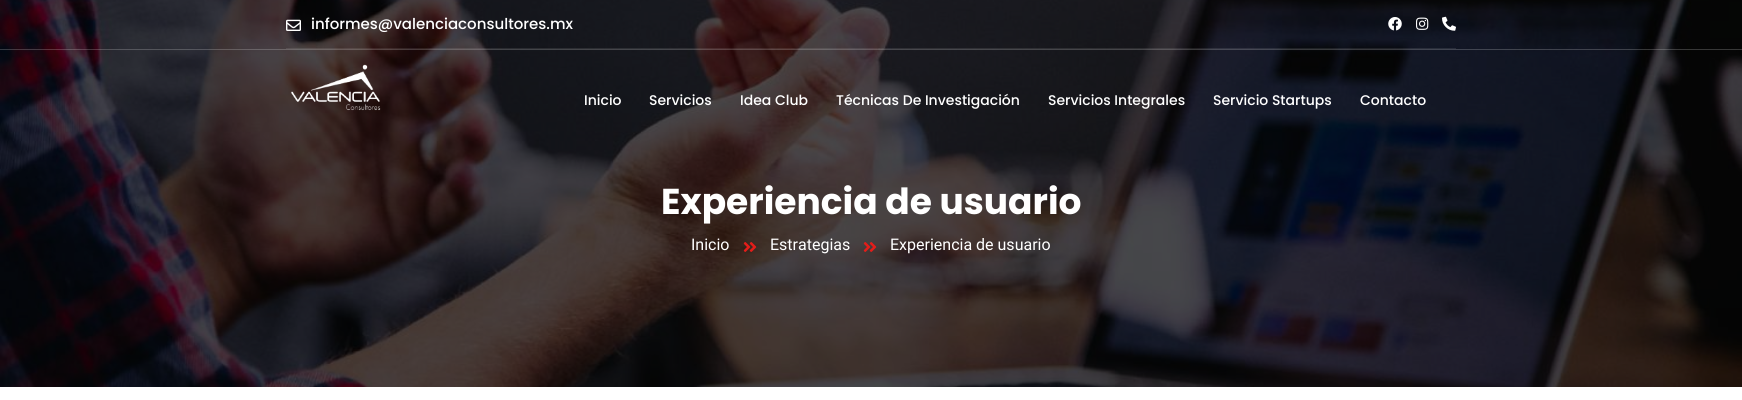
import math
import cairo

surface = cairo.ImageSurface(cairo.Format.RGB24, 1742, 400)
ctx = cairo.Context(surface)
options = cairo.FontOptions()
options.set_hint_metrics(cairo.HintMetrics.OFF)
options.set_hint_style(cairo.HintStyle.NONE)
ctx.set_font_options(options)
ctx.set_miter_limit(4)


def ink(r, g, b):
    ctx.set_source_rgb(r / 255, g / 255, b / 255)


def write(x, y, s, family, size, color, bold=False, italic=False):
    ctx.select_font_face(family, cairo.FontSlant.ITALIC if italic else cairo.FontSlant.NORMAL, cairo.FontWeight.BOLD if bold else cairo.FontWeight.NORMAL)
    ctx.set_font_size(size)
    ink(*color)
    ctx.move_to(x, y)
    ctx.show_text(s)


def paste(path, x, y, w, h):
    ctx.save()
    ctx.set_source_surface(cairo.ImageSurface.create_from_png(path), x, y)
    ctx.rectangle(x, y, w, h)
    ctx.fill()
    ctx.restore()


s1 = dict(family="Poppins Medium", size=15, color=(255, 255, 255))
s2 = dict(family="Poppins Medium", size=14, color=(255, 255, 255))
s3 = dict(family="Poppins", size=36, color=(255, 255, 255), bold=True)
s4 = dict(family="Roboto", size=16, color=(255, 255, 255))

ink(255, 255, 255)
ctx.paint()
paste("pic6.png", 0, 0, 1742, 387)
ctx.set_source_rgba(1, 1, 1, 0.2)
ctx.rectangle(0, 49, 1742, 1)
ctx.fill()
ctx.set_source_rgba(1, 1, 1, 0.1)
ctx.rectangle(286, 48, 1170, 1)
ctx.fill()
paste("pic1.png", 286, 19, 15, 12)
write(311, 29, "informes@valenciaconsultores.mx", **s1)
paste("pic2.png", 1388, 17, 14, 14)
paste("pic3.png", 1416, 17, 13, 13)
paste("pic4.png", 1442, 16, 14, 15)
paste("pic5.png", 291, 64, 90, 47)
write(584, 105, "Inicio", **s2)
write(649, 105, "Servicios", **s2)
write(740, 105, "Idea Club", **s2)
write(836, 105, "Técnicas De Investigación", **s2)
write(1048, 105, "Servicios Integrales", **s2)
write(1213, 105, "Servicio Startups", **s2)
write(1360, 105, "Contacto", **s2)
write(661, 214, "Experiencia de usuario", **s3)
write(691, 250, "Inicio", **s4)
paste("pic7.png", 743, 242, 14, 10)
write(770, 250, "Estrategias", **s4)
paste("pic8.png", 863, 242, 14, 10)
write(890, 250, "Experiencia de usuario", **s4)
surface.write_to_png("screenshot.png")
